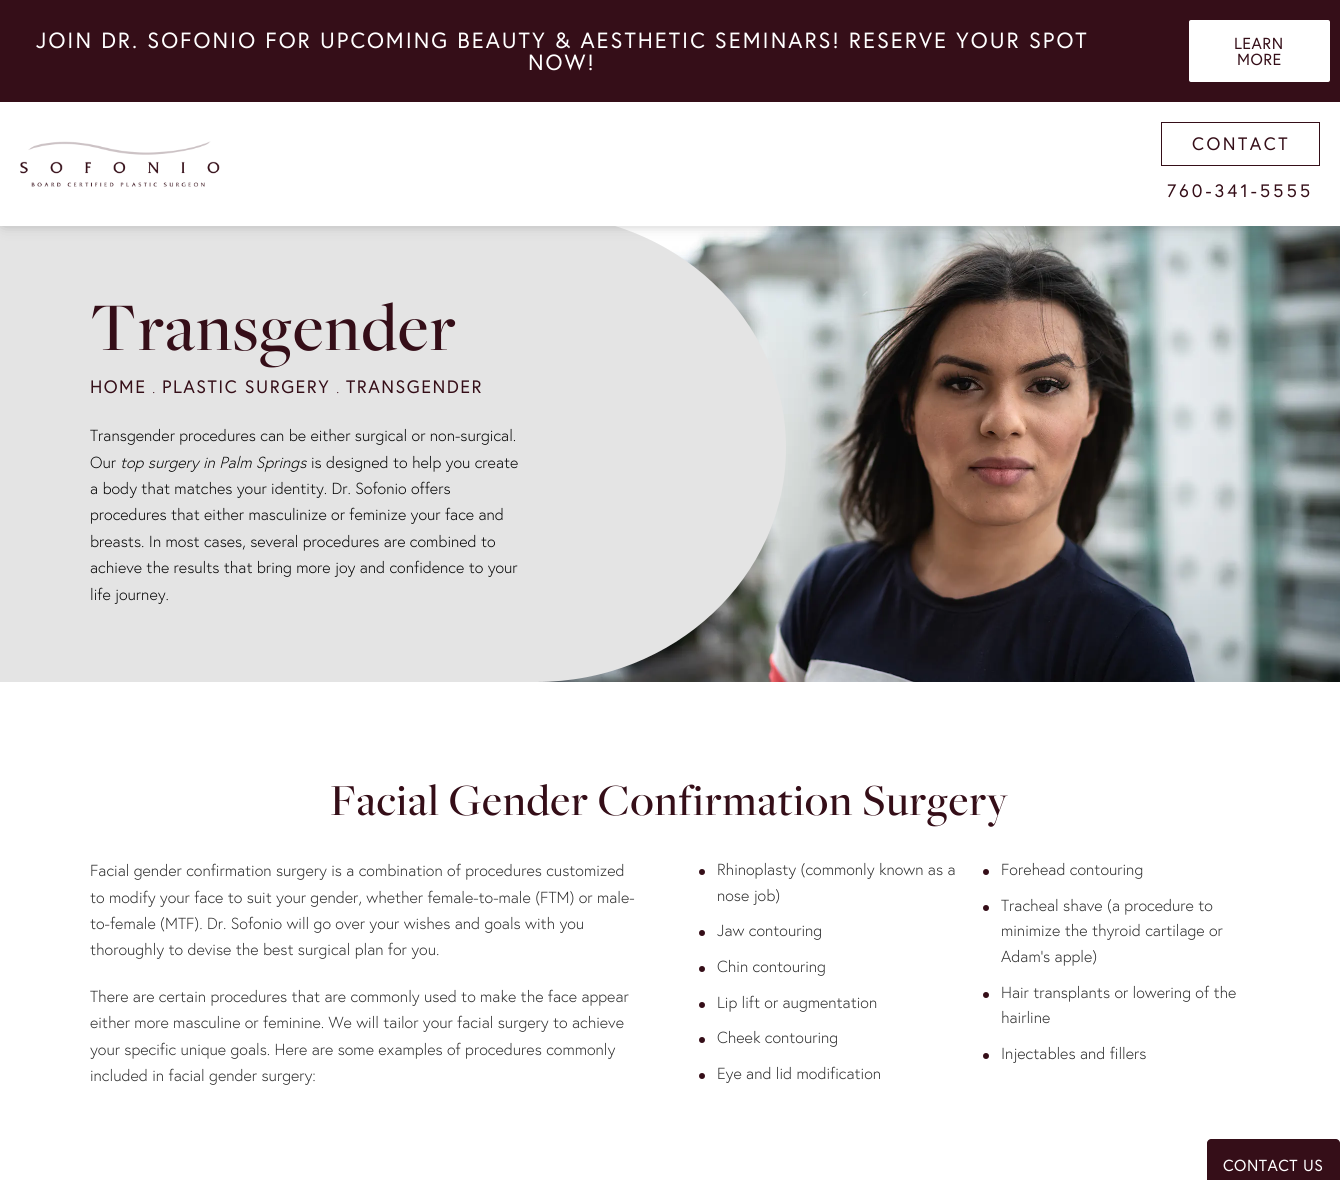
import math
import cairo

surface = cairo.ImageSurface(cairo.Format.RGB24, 1340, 1180)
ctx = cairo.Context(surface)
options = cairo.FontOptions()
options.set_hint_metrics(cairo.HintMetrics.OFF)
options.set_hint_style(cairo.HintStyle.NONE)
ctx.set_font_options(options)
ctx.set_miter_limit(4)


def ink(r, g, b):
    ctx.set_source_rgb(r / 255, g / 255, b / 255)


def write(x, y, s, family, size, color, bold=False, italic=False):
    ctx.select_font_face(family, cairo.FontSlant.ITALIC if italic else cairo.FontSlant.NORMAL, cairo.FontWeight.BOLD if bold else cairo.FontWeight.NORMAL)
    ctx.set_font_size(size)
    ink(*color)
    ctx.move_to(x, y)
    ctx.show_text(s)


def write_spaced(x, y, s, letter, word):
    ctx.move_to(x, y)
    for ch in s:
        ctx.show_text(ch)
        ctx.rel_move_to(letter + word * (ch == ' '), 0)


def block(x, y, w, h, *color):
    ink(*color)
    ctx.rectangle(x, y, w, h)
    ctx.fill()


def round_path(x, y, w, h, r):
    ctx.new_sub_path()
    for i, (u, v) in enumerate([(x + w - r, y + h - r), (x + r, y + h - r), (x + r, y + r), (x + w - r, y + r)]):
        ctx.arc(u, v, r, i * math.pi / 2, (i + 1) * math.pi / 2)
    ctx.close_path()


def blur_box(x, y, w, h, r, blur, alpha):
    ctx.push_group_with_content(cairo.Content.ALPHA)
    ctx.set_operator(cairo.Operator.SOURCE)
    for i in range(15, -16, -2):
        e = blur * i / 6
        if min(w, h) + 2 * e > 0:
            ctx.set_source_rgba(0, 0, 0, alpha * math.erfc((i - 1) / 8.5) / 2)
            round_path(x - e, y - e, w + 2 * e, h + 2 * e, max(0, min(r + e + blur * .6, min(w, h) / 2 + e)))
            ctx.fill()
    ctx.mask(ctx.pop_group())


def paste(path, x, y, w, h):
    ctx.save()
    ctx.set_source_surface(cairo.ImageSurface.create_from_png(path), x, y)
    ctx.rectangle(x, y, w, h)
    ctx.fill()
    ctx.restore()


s1 = dict(family="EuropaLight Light", size=16, color=(0, 0, 0))
s2 = dict(family="EuropaLight Light", size=16, color=(0, 0, 0), italic=True)
s3 = dict(family="EuropaLight Light", size=16, color=(42, 42, 42))

ink(255, 255, 255)
ctx.paint()
block(0, 226, 534, 456, 228, 228, 228)
paste("pic2.png", 538, 226, 802, 456)
ctx.new_path()
ctx.move_to(536, 214)
ctx.curve_to(674, 214, 786, 319, 786, 448)
ctx.curve_to(786, 577, 674, 682, 536, 682)
ctx.curve_to(398, 682, 286, 577, 286, 448)
ctx.curve_to(286, 319, 398, 214, 536, 214)
ctx.close_path()
ctx.fill()
ink(20, 20, 20)
blur_box(4, 4, 1332, 218, 0, 7.5, 0.4)
block(0, 102, 1340, 124, 255, 255, 255)
block(0, 0, 1340, 102, 53, 14, 24)
ctx.select_font_face("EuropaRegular")
ctx.set_font_size(22)
ink(255, 255, 255)
write_spaced(36, 48, "JOIN DR. SOFONIO FOR UPCOMING BEAUTY & AESTHETIC SEMINARS! RESERVE YOUR SPOT", 2, 0)
write_spaced(528, 70, "NOW!", 2, 0)
round_path(1189, 20, 141, 62, 2)
ctx.fill()
ctx.set_font_size(16)
ink(53, 14, 24)
write_spaced(1234, 49, "LEARN", 0.5, 0)
write_spaced(1237, 65, "MORE", 0.5, 0)
paste("pic1.png", 20, 141, 200, 46)
ctx.rectangle(1161.5, 122.5, 158, 43)
ctx.set_line_width(1)
ctx.stroke()
ctx.set_font_size(18)
write_spaced(1192, 150, "CONTACT", 2.5, 0)
write_spaced(1167, 197, "760-341-5555", 3, 0)
ctx.select_font_face("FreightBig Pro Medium")
ctx.set_font_size(70.75)
write_spaced(90, 350, "Transgender", 1.5, 0)
ctx.select_font_face("EuropaRegular")
ctx.set_font_size(18)
write_spaced(90, 393, "HOME", 1.5, 0)
ctx.select_font_face("EuropaLight Light")
ctx.set_font_size(16)
write_spaced(152, 393, ".", 1.5, 0)
ctx.select_font_face("EuropaRegular")
ctx.set_font_size(18)
write_spaced(162, 393, "PLASTIC SURGERY", 1.5, 0)
ctx.select_font_face("EuropaLight Light")
ctx.set_font_size(16)
write_spaced(336, 393, ".", 1.5, 0)
ctx.select_font_face("EuropaRegular")
ctx.set_font_size(18)
write_spaced(346, 393, "TRANSGENDER", 1.5, 0)
write(90, 441, "Transgender procedures can be either surgical or non-surgical.", **s1)
write(90, 468, "Our", **s1)
write(120, 468, "top surgery in Palm Springs", **s2)
write(311, 468, "is designed to help you create", **s1)
write(90, 494, "a body that matches your identity. Dr. Sofonio offers", **s1)
write(90, 520, "procedures that either masculinize or feminize your face and", **s1)
write(90, 547, "breasts. In most cases, several procedures are combined to", **s1)
write(90, 573, "achieve the results that bring more joy and confidence to your", **s1)
write(90, 600, "life journey.", **s1)
ctx.select_font_face("FreightBig Pro Medium")
ctx.set_font_size(46)
ink(53, 14, 24)
write_spaced(330, 815, "Facial Gender Confirmation Surgery", 1, 0)
write(90, 876, "Facial gender confirmation surgery is a combination of procedures customized", **s3)
write(90, 903, "to modify your face to suit your gender, whether female-to-male (FTM) or male-", **s3)
write(90, 929, "to-female (MTF). Dr. Sofonio will go over your wishes and goals with you", **s3)
write(90, 955, "thoroughly to devise the best surgical plan for you.", **s3)
write(90, 1002, "There are certain procedures that are commonly used to make the face appear", **s3)
write(90, 1028, "either more masculine or feminine. We will tailor your facial surgery to achieve", **s3)
write(90, 1055, "your specific unique goals. Here are some examples of procedures commonly", **s3)
write(90, 1081, "included in facial gender surgery:", **s3)
ink(53, 14, 24)
ctx.new_path()
ctx.arc(702, 872, 3, 0, 2 * math.pi)
ctx.fill()
write(717, 875, "Rhinoplasty (commonly known as a", **s3)
write(717, 901, "nose job)", **s3)
ink(53, 14, 24)
ctx.new_path()
ctx.arc(986, 872, 3, 0, 2 * math.pi)
ctx.fill()
write(1001, 875, "Forehead contouring", **s3)
ink(53, 14, 24)
ctx.new_path()
ctx.arc(702, 933, 3, 0, 2 * math.pi)
ctx.fill()
write(717, 936, "Jaw contouring", **s3)
ink(53, 14, 24)
ctx.new_path()
ctx.arc(986, 908, 3, 0, 2 * math.pi)
ctx.fill()
write(1001, 911, "Tracheal shave (a procedure to", **s3)
write(1001, 936, "minimize the thyroid cartilage or", **s3)
write(1001, 962, "Adam’s apple)", **s3)
ink(53, 14, 24)
ctx.new_path()
ctx.arc(702, 969, 3, 0, 2 * math.pi)
ctx.fill()
write(717, 972, "Chin contouring", **s3)
ink(53, 14, 24)
ctx.new_path()
ctx.arc(702, 1005, 3, 0, 2 * math.pi)
ctx.fill()
write(717, 1008, "Lip lift or augmentation", **s3)
ink(53, 14, 24)
ctx.new_path()
ctx.arc(986, 995, 3, 0, 2 * math.pi)
ctx.fill()
write(1001, 998, "Hair transplants or lowering of the", **s3)
write(1001, 1023, "hairline", **s3)
ink(53, 14, 24)
ctx.new_path()
ctx.arc(702, 1040, 3, 0, 2 * math.pi)
ctx.fill()
write(717, 1043, "Cheek contouring", **s3)
ink(53, 14, 24)
ctx.new_path()
ctx.arc(986, 1056, 3, 0, 2 * math.pi)
ctx.fill()
write(1001, 1059, "Injectables and fillers", **s3)
ink(53, 14, 24)
ctx.new_path()
ctx.arc(702, 1076, 3, 0, 2 * math.pi)
ctx.fill()
write(717, 1079, "Eye and lid modification", **s3)
ink(53, 14, 24)
ctx.new_path()
ctx.move_to(1211, 1139)
ctx.line_to(1336, 1139)
ctx.curve_to(1338, 1139, 1340, 1141, 1340, 1143)
ctx.line_to(1340, 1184)
ctx.line_to(1207, 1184)
ctx.line_to(1207, 1143)
ctx.curve_to(1207, 1141, 1209, 1139, 1211, 1139)
ctx.close_path()
ctx.fill()
ctx.select_font_face("EuropaRegular")
ink(255, 255, 255)
write_spaced(1223, 1171, "CONTACT US", 0.5, 0)
surface.write_to_png("screenshot.png")
